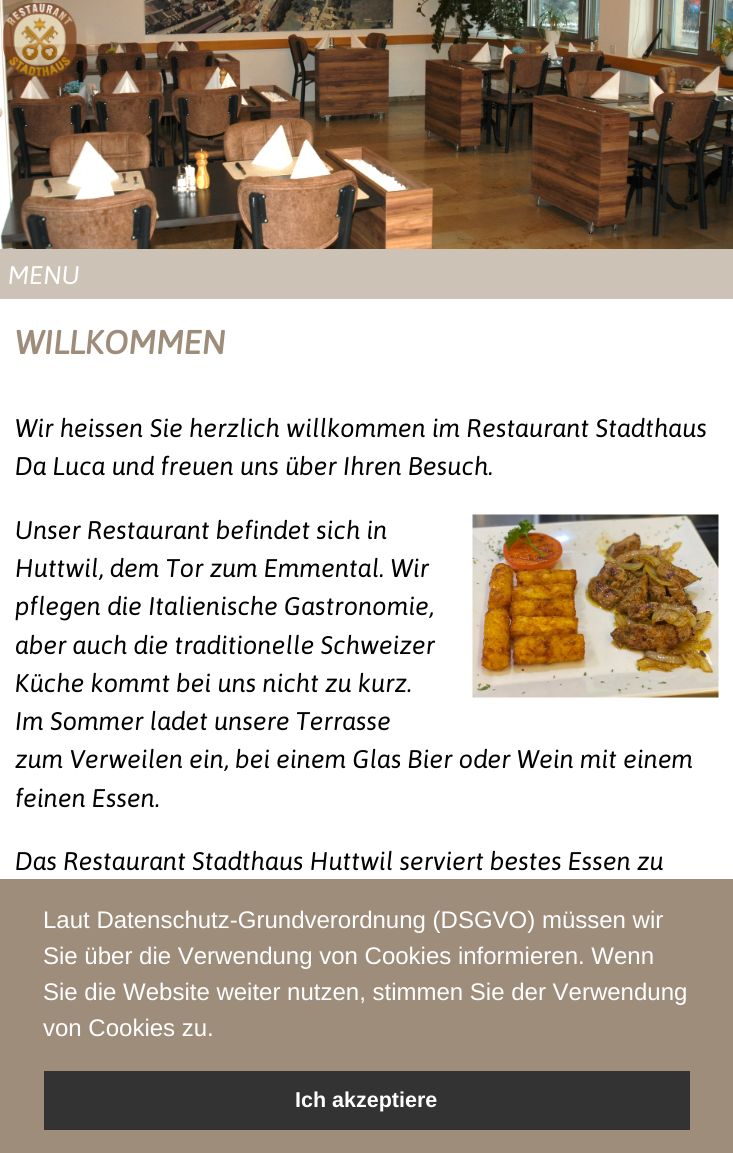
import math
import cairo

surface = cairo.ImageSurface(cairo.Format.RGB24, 733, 1153)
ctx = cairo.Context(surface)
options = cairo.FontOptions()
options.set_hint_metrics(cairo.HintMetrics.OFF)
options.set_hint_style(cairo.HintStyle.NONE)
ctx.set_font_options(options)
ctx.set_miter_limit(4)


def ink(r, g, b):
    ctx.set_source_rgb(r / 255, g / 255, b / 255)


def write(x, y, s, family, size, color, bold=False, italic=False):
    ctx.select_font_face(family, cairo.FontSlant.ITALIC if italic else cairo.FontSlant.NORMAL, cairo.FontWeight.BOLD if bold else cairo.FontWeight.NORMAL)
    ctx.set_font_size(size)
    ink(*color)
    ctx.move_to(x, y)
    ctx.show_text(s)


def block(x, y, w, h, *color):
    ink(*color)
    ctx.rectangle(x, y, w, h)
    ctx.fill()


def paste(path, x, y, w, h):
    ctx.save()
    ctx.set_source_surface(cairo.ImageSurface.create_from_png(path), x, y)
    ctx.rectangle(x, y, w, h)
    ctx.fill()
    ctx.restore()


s1 = dict(family="Asap", size=25.5, color=(255, 255, 255), italic=True)
s2 = dict(family="Asap", size=33, color=(158, 141, 123), bold=True, italic=True)
s3 = dict(family="Asap", size=25.5, color=(0, 0, 0), italic=True)
s4 = dict(family="Liberation Sans", size=24, color=(255, 255, 255))
s5 = dict(family="Liberation Sans", size=21.5, color=(255, 255, 255), bold=True)

ink(255, 255, 255)
ctx.paint()
paste("pic1.png", 0, 0, 733, 249)
paste("pic2.png", 3, 3, 74, 74)
block(0, 249, 733, 50, 205, 194, 182)
write(8, 284, "MENU", **s1)
write(15, 354, "WILLKOMMEN", **s2)
write(15, 437, "Wir heissen Sie herzlich willkommen im Restaurant Stadthaus", **s3)
write(15, 475, "Da Luca und freuen uns über Ihren Besuch.", **s3)
paste("pic3.png", 472, 514, 247, 184)
write(15, 539, "Unser Restaurant befindet sich in", **s3)
write(15, 577, "Huttwil, dem Tor zum Emmental. Wir", **s3)
write(15, 615, "pflegen die Italienische Gastronomie,", **s3)
write(15, 654, "aber auch die traditionelle Schweizer", **s3)
write(15, 692, "Küche kommt bei uns nicht zu kurz.", **s3)
write(15, 730, "Im Sommer ladet unsere Terrasse", **s3)
write(15, 768, "zum Verweilen ein, bei einem Glas Bier oder Wein mit einem", **s3)
write(15, 807, "feinen Essen.", **s3)
write(15, 870, "Das Restaurant Stadthaus Huttwil serviert bestes Essen zu", **s3)
block(0, 879, 733, 274, 158, 141, 123)
write(43, 928, "Laut Datenschutz-Grundverordnung (DSGVO) müssen wir", **s4)
write(43, 964, "Sie über die Verwendung von Cookies informieren. Wenn", **s4)
write(43, 1000, "Sie die Website weiter nutzen, stimmen Sie der Verwendung", **s4)
write(43, 1036, "von Cookies zu.", **s4)
block(44, 1071, 646, 59, 51, 51, 51)
write(295, 1107, "Ich akzeptiere", **s5)
surface.write_to_png("screenshot.png")
